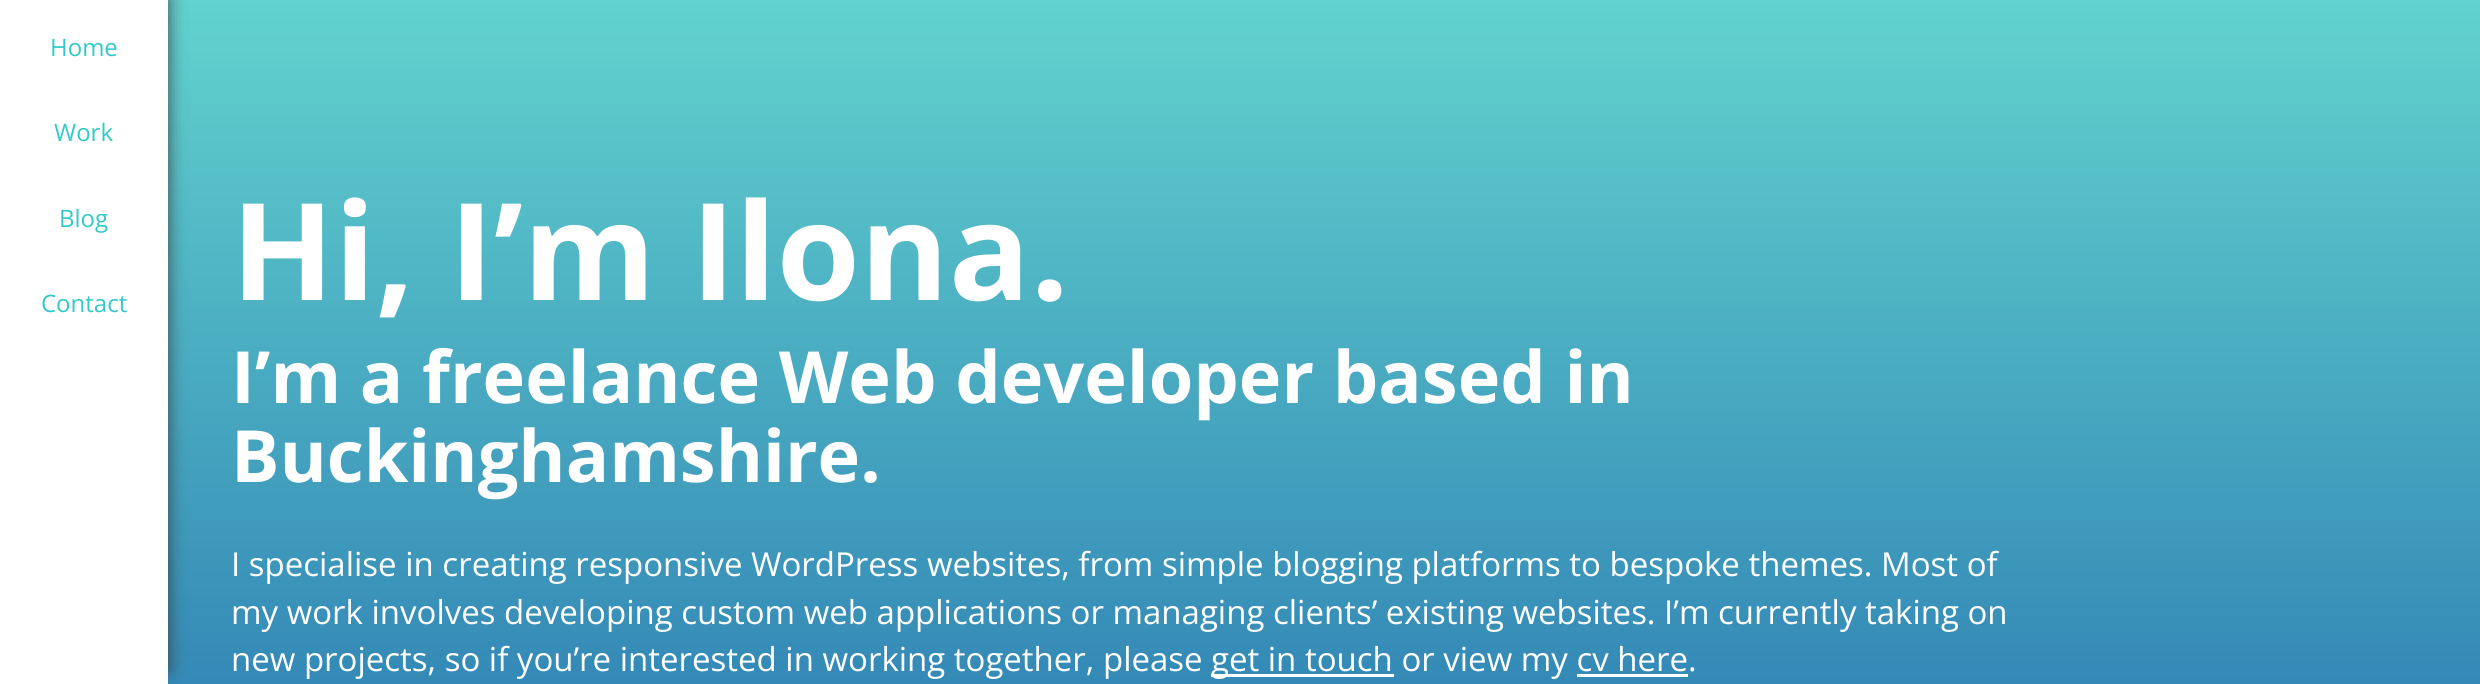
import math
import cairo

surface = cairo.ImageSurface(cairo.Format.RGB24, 2480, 684)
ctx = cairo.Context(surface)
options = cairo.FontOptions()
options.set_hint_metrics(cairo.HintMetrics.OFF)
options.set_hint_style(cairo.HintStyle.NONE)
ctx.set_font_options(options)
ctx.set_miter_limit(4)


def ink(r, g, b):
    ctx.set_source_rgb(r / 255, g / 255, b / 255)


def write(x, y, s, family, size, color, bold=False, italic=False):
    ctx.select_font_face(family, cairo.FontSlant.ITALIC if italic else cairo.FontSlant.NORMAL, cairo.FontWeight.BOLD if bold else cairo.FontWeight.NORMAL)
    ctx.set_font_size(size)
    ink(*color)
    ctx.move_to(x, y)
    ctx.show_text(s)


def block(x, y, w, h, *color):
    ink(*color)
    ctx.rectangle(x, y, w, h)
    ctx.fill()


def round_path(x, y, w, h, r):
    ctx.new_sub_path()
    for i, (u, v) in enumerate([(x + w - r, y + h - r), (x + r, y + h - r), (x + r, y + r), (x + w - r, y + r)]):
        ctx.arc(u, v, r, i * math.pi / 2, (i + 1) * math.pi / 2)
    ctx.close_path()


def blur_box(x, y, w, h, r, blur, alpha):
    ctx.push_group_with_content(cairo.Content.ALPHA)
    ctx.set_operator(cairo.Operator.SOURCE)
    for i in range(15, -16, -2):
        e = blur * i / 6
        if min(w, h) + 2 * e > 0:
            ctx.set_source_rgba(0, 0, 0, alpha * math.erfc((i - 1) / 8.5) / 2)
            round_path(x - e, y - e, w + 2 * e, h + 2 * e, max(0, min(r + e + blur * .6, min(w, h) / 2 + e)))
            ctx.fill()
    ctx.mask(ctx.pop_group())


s1 = dict(family="Open Sans", size=24, color=(52, 201, 201))
s2 = dict(family="Open Sans", size=135, color=(255, 255, 255), bold=True)
s3 = dict(family="Open Sans", size=72, color=(255, 255, 255), bold=True)
s4 = dict(family="Open Sans", size=33, color=(255, 255, 255))

ink(255, 255, 255)
ctx.paint()
gradient = cairo.LinearGradient(1241, 0, 1241, 684)
gradient.add_color_stop_rgba(0, 0.384, 0.827, 0.808, 1)
gradient.add_color_stop_rgba(1, 0.204, 0.537, 0.714, 1)
ctx.set_source(gradient)
ctx.rectangle(168, 0, 2312, 684)
ctx.fill()
ink(57, 57, 57)
blur_box(14, 0, 153, 669, 0, 9, 1)
block(0, 0, 168, 684, 255, 255, 255)
write(50, 56, "Home", **s1)
write(54, 141, "Work", **s1)
write(59, 227, "Blog", **s1)
write(41, 312, "Contact", **s1)
write(231, 300, "Hi, I’m Ilona.", **s2)
write(231, 403, "I’m a freelance Web developer based in", **s3)
write(231, 482, "Buckinghamshire.", **s3)
write(231, 576, "I specialise in creating responsive WordPress websites, from simple blogging platforms to bespoke themes. Most of", **s4)
write(231, 624, "my work involves developing custom web applications or managing clients’ existing websites. I’m currently taking on", **s4)
write(231, 671, "new projects, so if you’re interested in working together, please", **s4)
block(1211, 674, 183, 3, 255, 255, 255)
write(1211, 671, "get in touch or view my cv here.", **s4)
block(1577, 674, 111, 3, 255, 255, 255)
surface.write_to_png("screenshot.png")
